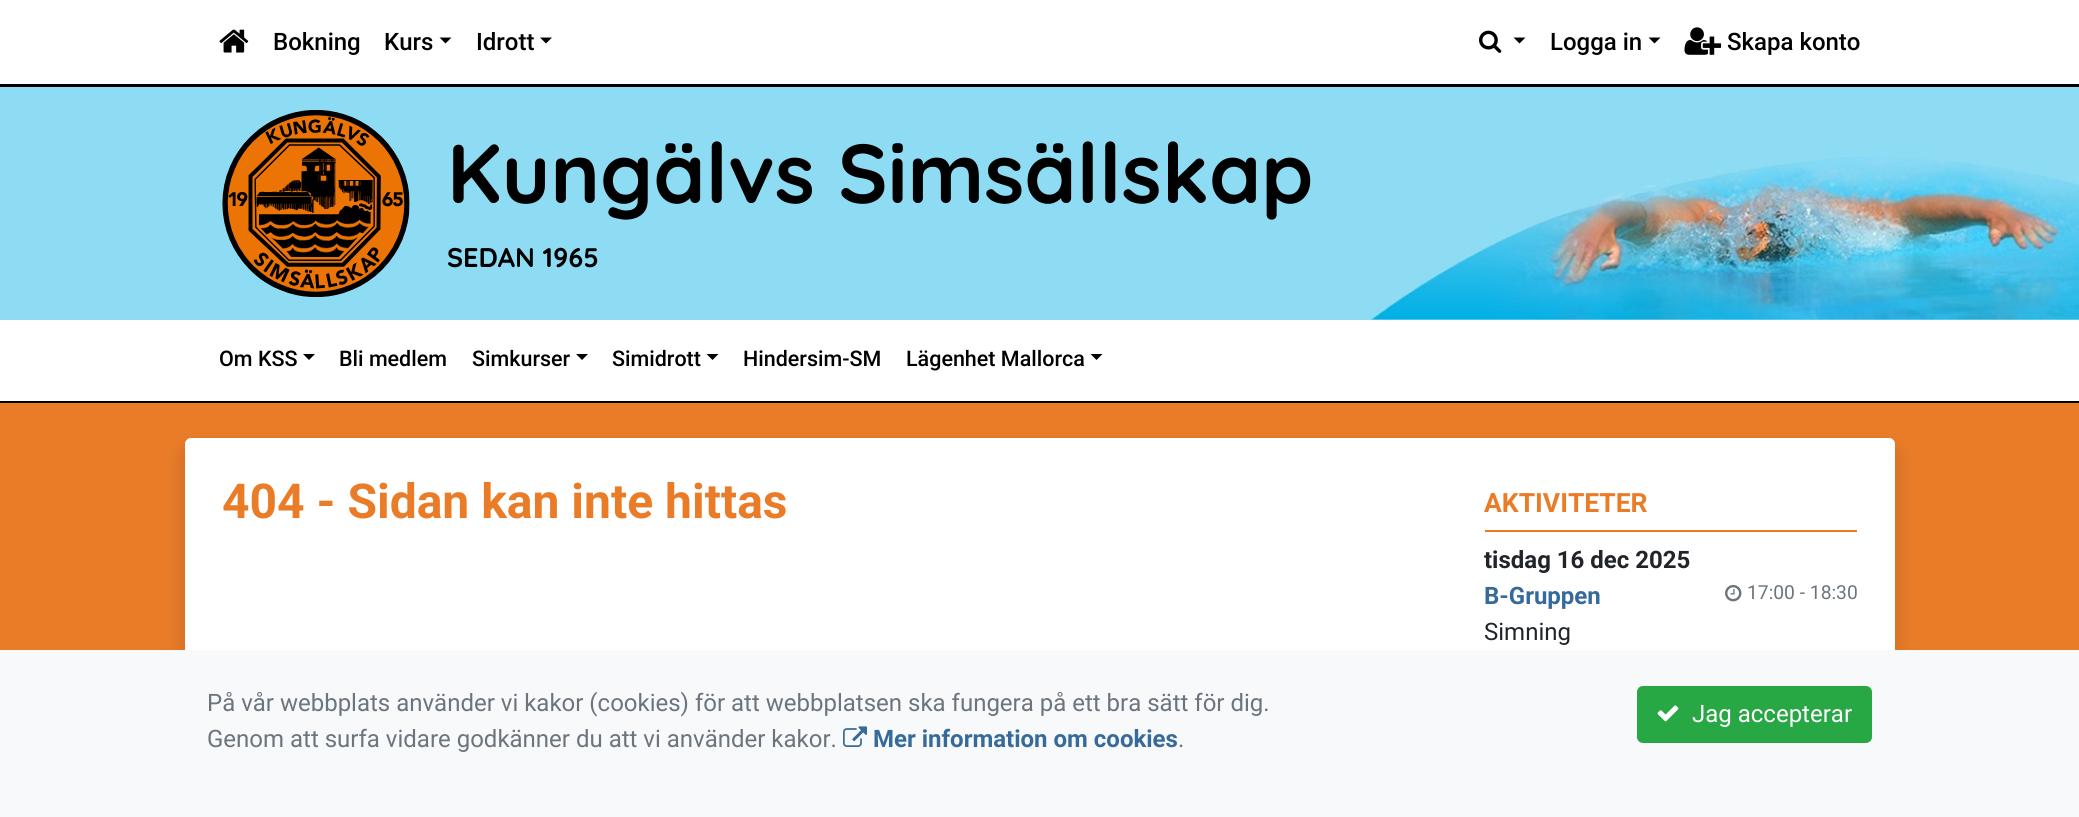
import math
import cairo

surface = cairo.ImageSurface(cairo.Format.RGB24, 2079, 817)
ctx = cairo.Context(surface)
options = cairo.FontOptions()
options.set_hint_metrics(cairo.HintMetrics.OFF)
options.set_hint_style(cairo.HintStyle.NONE)
ctx.set_font_options(options)
ctx.set_miter_limit(4)


def ink(r, g, b):
    ctx.set_source_rgb(r / 255, g / 255, b / 255)


def write(x, y, s, family, size, color, bold=False, italic=False):
    ctx.select_font_face(family, cairo.FontSlant.ITALIC if italic else cairo.FontSlant.NORMAL, cairo.FontWeight.BOLD if bold else cairo.FontWeight.NORMAL)
    ctx.set_font_size(size)
    ink(*color)
    ctx.move_to(x, y)
    ctx.show_text(s)


def block(x, y, w, h, *color):
    ink(*color)
    ctx.rectangle(x, y, w, h)
    ctx.fill()


def round_path(x, y, w, h, r):
    ctx.new_sub_path()
    for i, (u, v) in enumerate([(x + w - r, y + h - r), (x + r, y + h - r), (x + r, y + r), (x + w - r, y + r)]):
        ctx.arc(u, v, r, i * math.pi / 2, (i + 1) * math.pi / 2)
    ctx.close_path()


def blur_box(x, y, w, h, r, blur, alpha):
    ctx.push_group_with_content(cairo.Content.ALPHA)
    ctx.set_operator(cairo.Operator.SOURCE)
    for i in range(15, -16, -2):
        e = blur * i / 6
        if min(w, h) + 2 * e > 0:
            ctx.set_source_rgba(0, 0, 0, alpha * math.erfc((i - 1) / 8.5) / 2)
            round_path(x - e, y - e, w + 2 * e, h + 2 * e, max(0, min(r + e + blur * .6, min(w, h) / 2 + e)))
            ctx.fill()
    ctx.mask(ctx.pop_group())


def paste(path, x, y, w, h):
    ctx.save()
    ctx.set_source_surface(cairo.ImageSurface.create_from_png(path), x, y)
    ctx.rectangle(x, y, w, h)
    ctx.fill()
    ctx.restore()


s1 = dict(family="Roboto Medium", size=24, color=(0, 0, 0))
s2 = dict(family="Quicksand", size=83.25, color=(0, 0, 0), bold=True)
s3 = dict(family="Quicksand", size=27, color=(0, 0, 0), bold=True)
s4 = dict(family="Roboto Medium", size=21.5, color=(0, 0, 0))
s5 = dict(family="Roboto", size=48, color=(234, 124, 40), bold=True)
s6 = dict(family="Roboto", size=26.5, color=(234, 124, 40), bold=True)
s7 = dict(family="Roboto", size=24, color=(33, 37, 41), bold=True)
s8 = dict(family="Roboto", size=24, color=(53, 106, 154), bold=True)
s9 = dict(family="Roboto", size=19.25, color=(108, 117, 125))
s10 = dict(family="Roboto", size=24, color=(33, 37, 41))
s11 = dict(family="Roboto", size=24, color=(108, 117, 125))
s12 = dict(family="Roboto", size=24, color=(255, 255, 255))

ink(234, 124, 40)
ctx.paint()
block(0, 0, 2079, 84, 255, 255, 255)
block(0, 84, 2079, 3, 0, 0, 0)
paste("pic1.png", 219, 29, 30, 24)
write(273, 50, "Bokning", **s1)
write(384, 50, "Kurs", **s1)
ctx.new_path()
ctx.move_to(439.5, 37.5)
ctx.line_to(451.5, 37.5)
ctx.line_to(445.5, 43.5)
ctx.close_path()
ctx.fill()
write(476, 50, "Idrott", **s1)
ctx.new_path()
ctx.move_to(540, 37.5)
ctx.line_to(552, 37.5)
ctx.line_to(546, 43.5)
ctx.close_path()
ctx.fill()
paste("pic2.png", 1479, 30, 23, 23)
ctx.new_path()
ctx.move_to(1513.5, 37.5)
ctx.line_to(1525.5, 37.5)
ctx.line_to(1519.5, 43.5)
ctx.close_path()
ctx.fill()
write(1550, 50, "Logga in", **s1)
ctx.new_path()
ctx.move_to(1648.5, 37.5)
ctx.line_to(1660.5, 37.5)
ctx.line_to(1654.5, 43.5)
ctx.close_path()
ctx.fill()
paste("pic3.png", 1684, 27, 38, 28)
write(1727, 50, "Skapa konto", **s1)
block(0, 87, 2079, 233, 142, 220, 243)
paste("pic4.png", 1368, 157, 711, 163)
paste("pic5.png", 222, 110, 188, 187)
write(447, 203, "Kungälvs Simsällskap", **s2)
write(447, 267, "SEDAN 1965", **s3)
block(0, 320, 2079, 81, 255, 255, 255)
write(219, 366, "Om KSS", **s4)
ctx.new_path()
ctx.move_to(303, 354)
ctx.line_to(315, 354)
ctx.line_to(309, 360)
ctx.close_path()
ctx.fill()
write(339, 366, "Bli medlem", **s4)
write(472, 366, "Simkurser", **s4)
ctx.new_path()
ctx.move_to(576, 354)
ctx.line_to(588, 354)
ctx.line_to(582, 360)
ctx.close_path()
ctx.fill()
write(612, 366, "Simidrott", **s4)
ctx.new_path()
ctx.move_to(706.5, 354)
ctx.line_to(718.5, 354)
ctx.line_to(712.5, 360)
ctx.close_path()
ctx.fill()
write(743, 366, "Hindersim-SM", **s4)
write(906, 366, "Lägenhet Mallorca", **s4)
ctx.new_path()
ctx.move_to(1090.5, 354)
ctx.line_to(1102.5, 354)
ctx.line_to(1096.5, 360)
ctx.close_path()
ctx.fill()
block(0, 401, 2079, 2, 0, 0, 0)
ink(0, 0, 0)
blur_box(185, 450, 1710, 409, 6, 12, 0.15)
ink(255, 255, 255)
round_path(185, 438, 1710, 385, 6)
ctx.fill()
write(222, 518, "404 - Sidan kan inte hittas", **s5)
block(1485, 530, 372, 2, 234, 124, 40)
write(1484, 512, "AKTIVITETER", **s6)
write(1484, 568, "tisdag 16 dec 2025", **s7)
write(1484, 604, "B-Gruppen", **s8)
paste("pic6.png", 1725, 584, 17, 18)
write(1747, 599, "17:00 - 18:30", **s9)
write(1484, 640, "Simning", **s10)
block(0, 650, 2079, 167, 248, 249, 250)
write(207, 711, "På vår webbplats använder vi kakor (cookies) för att webbplatsen ska fungera på ett bra sätt för dig.", **s11)
write(207, 747, "Genom att surfa vidare godkänner du att vi använder kakor.", **s11)
paste("pic7.png", 843, 726, 24, 21)
write(873, 747, "Mer information om cookies", **s8)
write(1178, 747, ".", **s11)
ink(40, 167, 69)
round_path(1638, 687, 233, 55, 5)
ctx.fill_preserve()
ctx.stroke()
paste("pic8.png", 1657, 705, 22, 17)
write(1692, 722, "Jag accepterar", **s12)
surface.write_to_png("screenshot.png")
